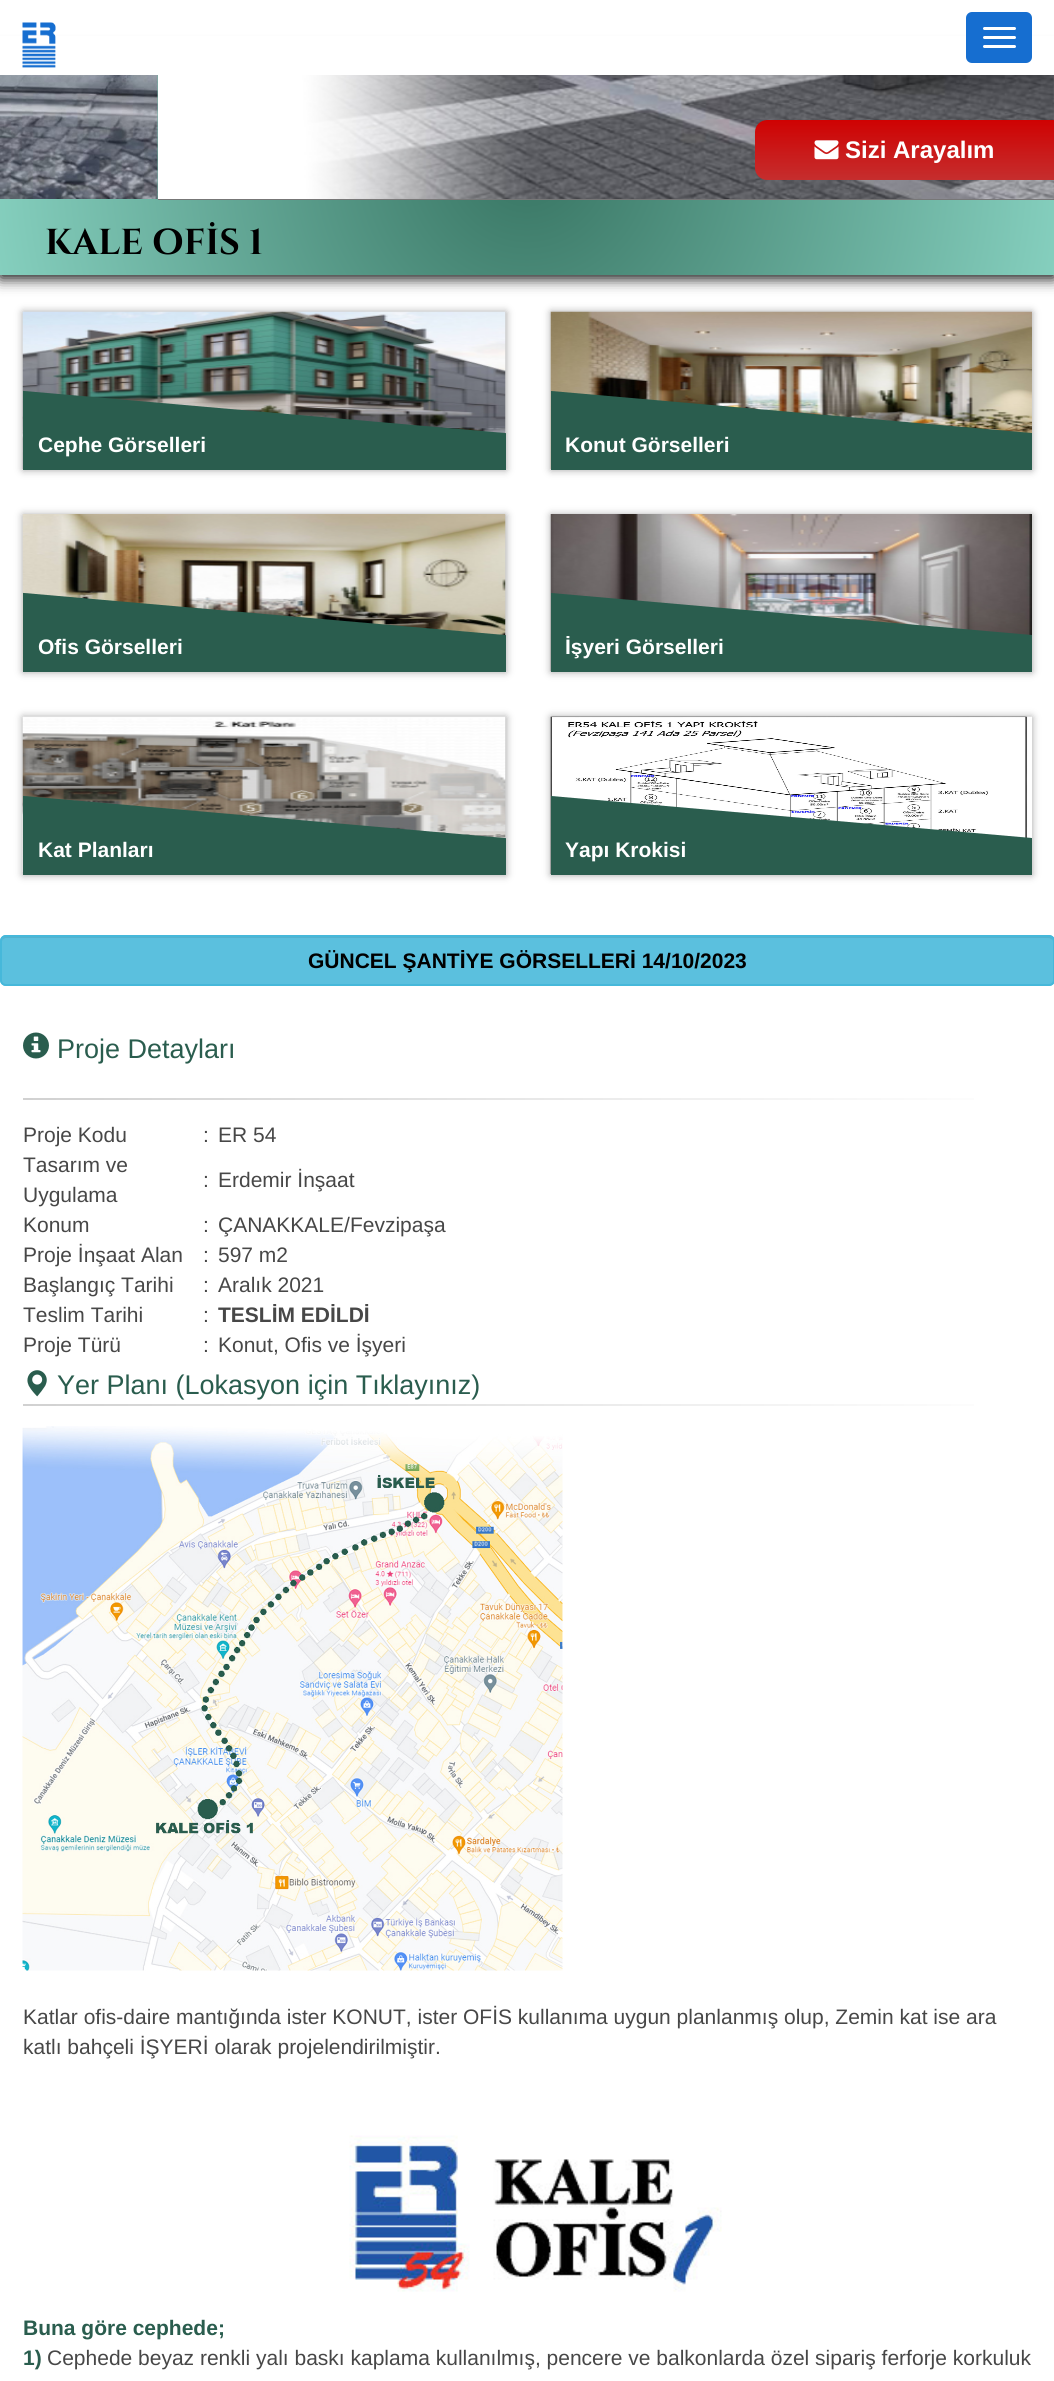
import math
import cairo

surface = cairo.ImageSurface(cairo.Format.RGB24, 1054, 2381)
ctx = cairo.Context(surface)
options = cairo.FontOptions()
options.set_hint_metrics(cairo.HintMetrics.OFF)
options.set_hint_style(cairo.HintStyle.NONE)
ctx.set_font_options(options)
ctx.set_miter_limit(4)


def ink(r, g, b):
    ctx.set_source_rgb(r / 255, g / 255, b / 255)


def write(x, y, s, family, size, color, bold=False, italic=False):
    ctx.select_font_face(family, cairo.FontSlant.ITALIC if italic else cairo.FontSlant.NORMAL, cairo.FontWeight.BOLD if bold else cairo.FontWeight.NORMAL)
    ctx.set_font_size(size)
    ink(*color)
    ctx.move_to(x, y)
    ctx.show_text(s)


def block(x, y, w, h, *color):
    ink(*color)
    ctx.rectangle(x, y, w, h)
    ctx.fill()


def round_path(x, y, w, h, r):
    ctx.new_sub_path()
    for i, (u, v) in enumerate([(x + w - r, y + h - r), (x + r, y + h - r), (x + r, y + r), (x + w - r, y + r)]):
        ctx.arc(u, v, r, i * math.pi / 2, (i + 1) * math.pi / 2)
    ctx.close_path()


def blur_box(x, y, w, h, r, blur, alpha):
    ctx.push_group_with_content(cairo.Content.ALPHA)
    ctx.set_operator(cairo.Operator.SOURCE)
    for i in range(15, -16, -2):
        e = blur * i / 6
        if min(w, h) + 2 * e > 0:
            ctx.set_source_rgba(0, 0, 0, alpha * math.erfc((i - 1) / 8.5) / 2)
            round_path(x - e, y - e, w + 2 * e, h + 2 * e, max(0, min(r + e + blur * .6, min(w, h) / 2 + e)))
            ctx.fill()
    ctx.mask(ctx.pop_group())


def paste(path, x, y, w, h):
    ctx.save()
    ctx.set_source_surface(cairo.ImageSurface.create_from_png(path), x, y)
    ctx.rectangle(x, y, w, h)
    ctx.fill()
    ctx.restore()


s1 = dict(family="Liberation Sans", size=24, color=(255, 255, 255), bold=True)
s2 = dict(family="Cinzel", size=36, color=(0, 0, 0), bold=True)
s3 = dict(family="Liberation Sans", size=21, color=(255, 255, 255), bold=True)
s4 = dict(family="Liberation Sans", size=21, color=(0, 0, 0), bold=True)
s5 = dict(family="Liberation Sans", size=27, color=(42, 93, 78))
s6 = dict(family="Liberation Sans", size=21, color=(71, 71, 71))
s7 = dict(family="Liberation Sans", size=21, color=(71, 71, 71), bold=True)
s8 = dict(family="Liberation Sans", size=21, color=(42, 93, 78), bold=True)

ink(255, 255, 255)
ctx.paint()
ink(0, 0, 0)
blur_box(0, 53, 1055, 225, 0, 7.5, 1)
block(0, 36, 1054, 39, 255, 255, 255)
paste("pic1.png", 22, 22, 34, 46)
ink(22, 110, 208)
round_path(967, 13, 64, 49, 5)
ctx.fill_preserve()
ctx.stroke()
ink(255, 255, 255)
round_path(983, 27, 33, 3, 1.5)
ctx.fill()
round_path(983, 36, 33, 3, 1.5)
ctx.fill()
round_path(983, 45, 33, 3, 1.5)
ctx.fill()
gradient = cairo.RadialGradient(527, 162, 0, 527, 162, 539)
gradient.add_color_stop_rgba(0, 0.22, 0.459, 0.388, 1)
gradient.add_color_stop_rgba(1, 0.522, 0.812, 0.745, 1)
ctx.set_source(gradient)
ctx.rectangle(0, 75, 1054, 200)
ctx.fill()
paste("pic2.png", 0, 75, 158, 124)
block(158, 75, 896, 125, 119, 119, 119)
paste("pic3.png", 158, 75, 896, 124)
gradient = cairo.LinearGradient(905, 120, 905, 180)
gradient.add_color_stop_rgba(0, 0.812, 0.008, 0.008, 1)
gradient.add_color_stop_rgba(1, 0.773, 0.18, 0.18, 1)
ctx.set_source(gradient)
ctx.new_path()
ctx.move_to(767, 120)
ctx.line_to(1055, 120)
ctx.line_to(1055, 180)
ctx.line_to(767, 180)
ctx.curve_to(760.5, 180, 755, 174.5, 755, 168)
ctx.line_to(755, 132)
ctx.curve_to(755, 125.5, 760.5, 120, 767, 120)
ctx.close_path()
ctx.fill()
paste("pic4.png", 814, 140, 25, 20)
write(845, 158, "Sizi Arayalım", **s1)
write(45, 254, "KALE OFİS 1", **s2)
ink(163, 163, 163)
blur_box(23, 312, 483, 158, 0, 4, 1)
paste("pic5.png", 22, 311, 484, 158)
ctx.save()
ctx.rectangle(23, 312, 483, 158)
ctx.clip()
ink(42, 93, 78)
ctx.new_path()
ctx.move_to(-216, 370)
ctx.line_to(985, 475)
ctx.line_to(955, 820)
ctx.line_to(-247, 715)
ctx.close_path()
ctx.fill()
ctx.restore()
write(38, 452, "Cephe Görselleri", **s3)
ink(163, 163, 163)
blur_box(551, 312, 481, 158, 0, 4, 1)
paste("pic6.png", 550, 311, 482, 158)
ctx.save()
ctx.rectangle(551, 312, 481, 158)
ctx.clip()
ink(42, 93, 78)
ctx.new_path()
ctx.move_to(311, 370)
ctx.line_to(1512, 475)
ctx.line_to(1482, 820)
ctx.line_to(281, 715)
ctx.close_path()
ctx.fill()
ctx.restore()
write(565, 452, "Konut Görselleri", **s3)
ink(163, 163, 163)
blur_box(23, 515, 483, 157, 0, 4, 1)
paste("pic7.png", 22, 514, 484, 158)
ctx.save()
ctx.rectangle(23, 515, 483, 157)
ctx.clip()
ink(42, 93, 78)
ctx.new_path()
ctx.move_to(-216, 572)
ctx.line_to(985, 677)
ctx.line_to(955, 1022)
ctx.line_to(-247, 917)
ctx.close_path()
ctx.fill()
ctx.restore()
write(38, 654, "Ofis Görselleri", **s3)
ink(163, 163, 163)
blur_box(551, 515, 481, 157, 0, 4, 1)
paste("pic8.png", 550, 514, 482, 158)
ctx.save()
ctx.rectangle(551, 515, 481, 157)
ctx.clip()
ink(42, 93, 78)
ctx.new_path()
ctx.move_to(311, 572)
ctx.line_to(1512, 677)
ctx.line_to(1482, 1022)
ctx.line_to(281, 917)
ctx.close_path()
ctx.fill()
ctx.restore()
write(565, 654, "İşyeri Görselleri", **s3)
ink(163, 163, 163)
blur_box(23, 717, 483, 158, 0, 4, 1)
paste("pic9.png", 22, 716, 484, 156)
ctx.save()
ctx.rectangle(23, 717, 483, 158)
ctx.clip()
ink(42, 93, 78)
ctx.new_path()
ctx.move_to(-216, 775)
ctx.line_to(985, 880)
ctx.line_to(955, 1225)
ctx.line_to(-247, 1120)
ctx.close_path()
ctx.fill()
ctx.restore()
write(38, 857, "Kat Planları", **s3)
ink(163, 163, 163)
blur_box(551, 717, 481, 158, 0, 4, 1)
paste("pic10.png", 550, 716, 482, 158)
ctx.save()
ctx.rectangle(551, 717, 481, 158)
ctx.clip()
ink(42, 93, 78)
ctx.new_path()
ctx.move_to(311, 775)
ctx.line_to(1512, 880)
ctx.line_to(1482, 1225)
ctx.line_to(281, 1120)
ctx.close_path()
ctx.fill()
ctx.restore()
write(565, 857, "Yapı Krokisi", **s3)
ink(91, 192, 222)
round_path(0, 935, 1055, 51, 6)
ctx.fill()
ink(84, 178, 205)
ctx.new_path()
ctx.move_to(6, 938)
ctx.line_to(1048, 938)
ctx.curve_to(1051, 938, 1053, 940, 1053, 942)
ctx.curve_to(1053, 939, 1051, 936, 1048, 936)
ctx.line_to(7, 936)
ctx.curve_to(4, 936, 2, 939, 2, 942)
ctx.curve_to(2, 940, 4, 938, 6, 938)
ctx.close_path()
ctx.fill()
round_path(1, 936, 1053, 49, 5)
ink(70, 184, 218)
ctx.stroke()
write(308, 968, "GÜNCEL ŞANTİYE GÖRSELLERİ 14/10/2023", **s4)
paste("pic11.png", 23, 1032, 26, 27)
write(57, 1058, "Proje Detayları", **s5)
gradient = cairo.LinearGradient(23, 1099, 1032, 1099)
gradient.add_color_stop_rgba(0, 0.82, 0.82, 0.82, 1)
gradient.add_color_stop_rgba(0.35, 0.878, 0.878, 0.878, 1)
gradient.add_color_stop_rgba(0.7, 0.949, 0.949, 0.949, 1)
gradient.add_color_stop_rgba(1, 1, 1, 1, 1)
ctx.set_source(gradient)
ctx.rectangle(23, 1098, 951, 2)
ctx.fill()
write(23, 1142, "Proje Kodu", **s6)
write(203, 1142, ":", **s6)
write(218, 1142, "ER 54", **s6)
write(23, 1172, "Tasarım ve", **s6)
write(23, 1202, "Uygulama", **s6)
write(203, 1187, ":", **s6)
write(218, 1187, "Erdemir İnşaat", **s6)
write(23, 1232, "Konum", **s6)
write(203, 1232, ":", **s6)
write(218, 1232, "ÇANAKKALE/Fevzipaşa", **s6)
write(23, 1262, "Proje İnşaat Alan", **s6)
write(203, 1262, ":", **s6)
write(218, 1262, "597 m2", **s6)
write(23, 1292, "Başlangıç Tarihi", **s6)
write(203, 1292, ":", **s6)
write(218, 1292, "Aralık 2021", **s6)
write(23, 1322, "Teslim Tarihi", **s6)
write(203, 1322, ":", **s6)
write(218, 1322, "TESLİM EDİLDİ", **s7)
write(23, 1352, "Proje Türü", **s6)
write(203, 1352, ":", **s6)
write(218, 1352, "Konut, Ofis ve İşyeri", **s6)
paste("pic12.png", 27, 1370, 20, 27)
write(57, 1394, "Yer Planı (Lokasyon için Tıklayınız)", **s5)
gradient = cairo.LinearGradient(23, 1405, 1032, 1405)
gradient.add_color_stop_rgba(0, 0.82, 0.82, 0.82, 1)
gradient.add_color_stop_rgba(0.35, 0.878, 0.878, 0.878, 1)
gradient.add_color_stop_rgba(0.7, 0.949, 0.949, 0.949, 1)
gradient.add_color_stop_rgba(1, 1, 1, 1, 1)
ctx.set_source(gradient)
ctx.rectangle(23, 1404, 951, 2)
ctx.fill()
paste("pic13.png", 22, 1426, 541, 545)
write(23, 2024, "Katlar ofis-daire mantığında ister KONUT, ister OFİS kullanıma uygun planlanmış olup, Zemin kat ise ara", **s6)
write(23, 2054, "katlı bahçeli İŞYERİ olarak projelendirilmiştir.", **s6)
paste("pic14.png", 349, 2135, 373, 157)
write(23, 2335, "Buna göre cephede;", **s8)
write(23, 2365, "1)", **s8)
write(47, 2365, "Cephede beyaz renkli yalı baskı kaplama kullanılmış, pencere ve balkonlarda özel sipariş ferforje korkuluk", **s6)
surface.write_to_png("screenshot.png")
